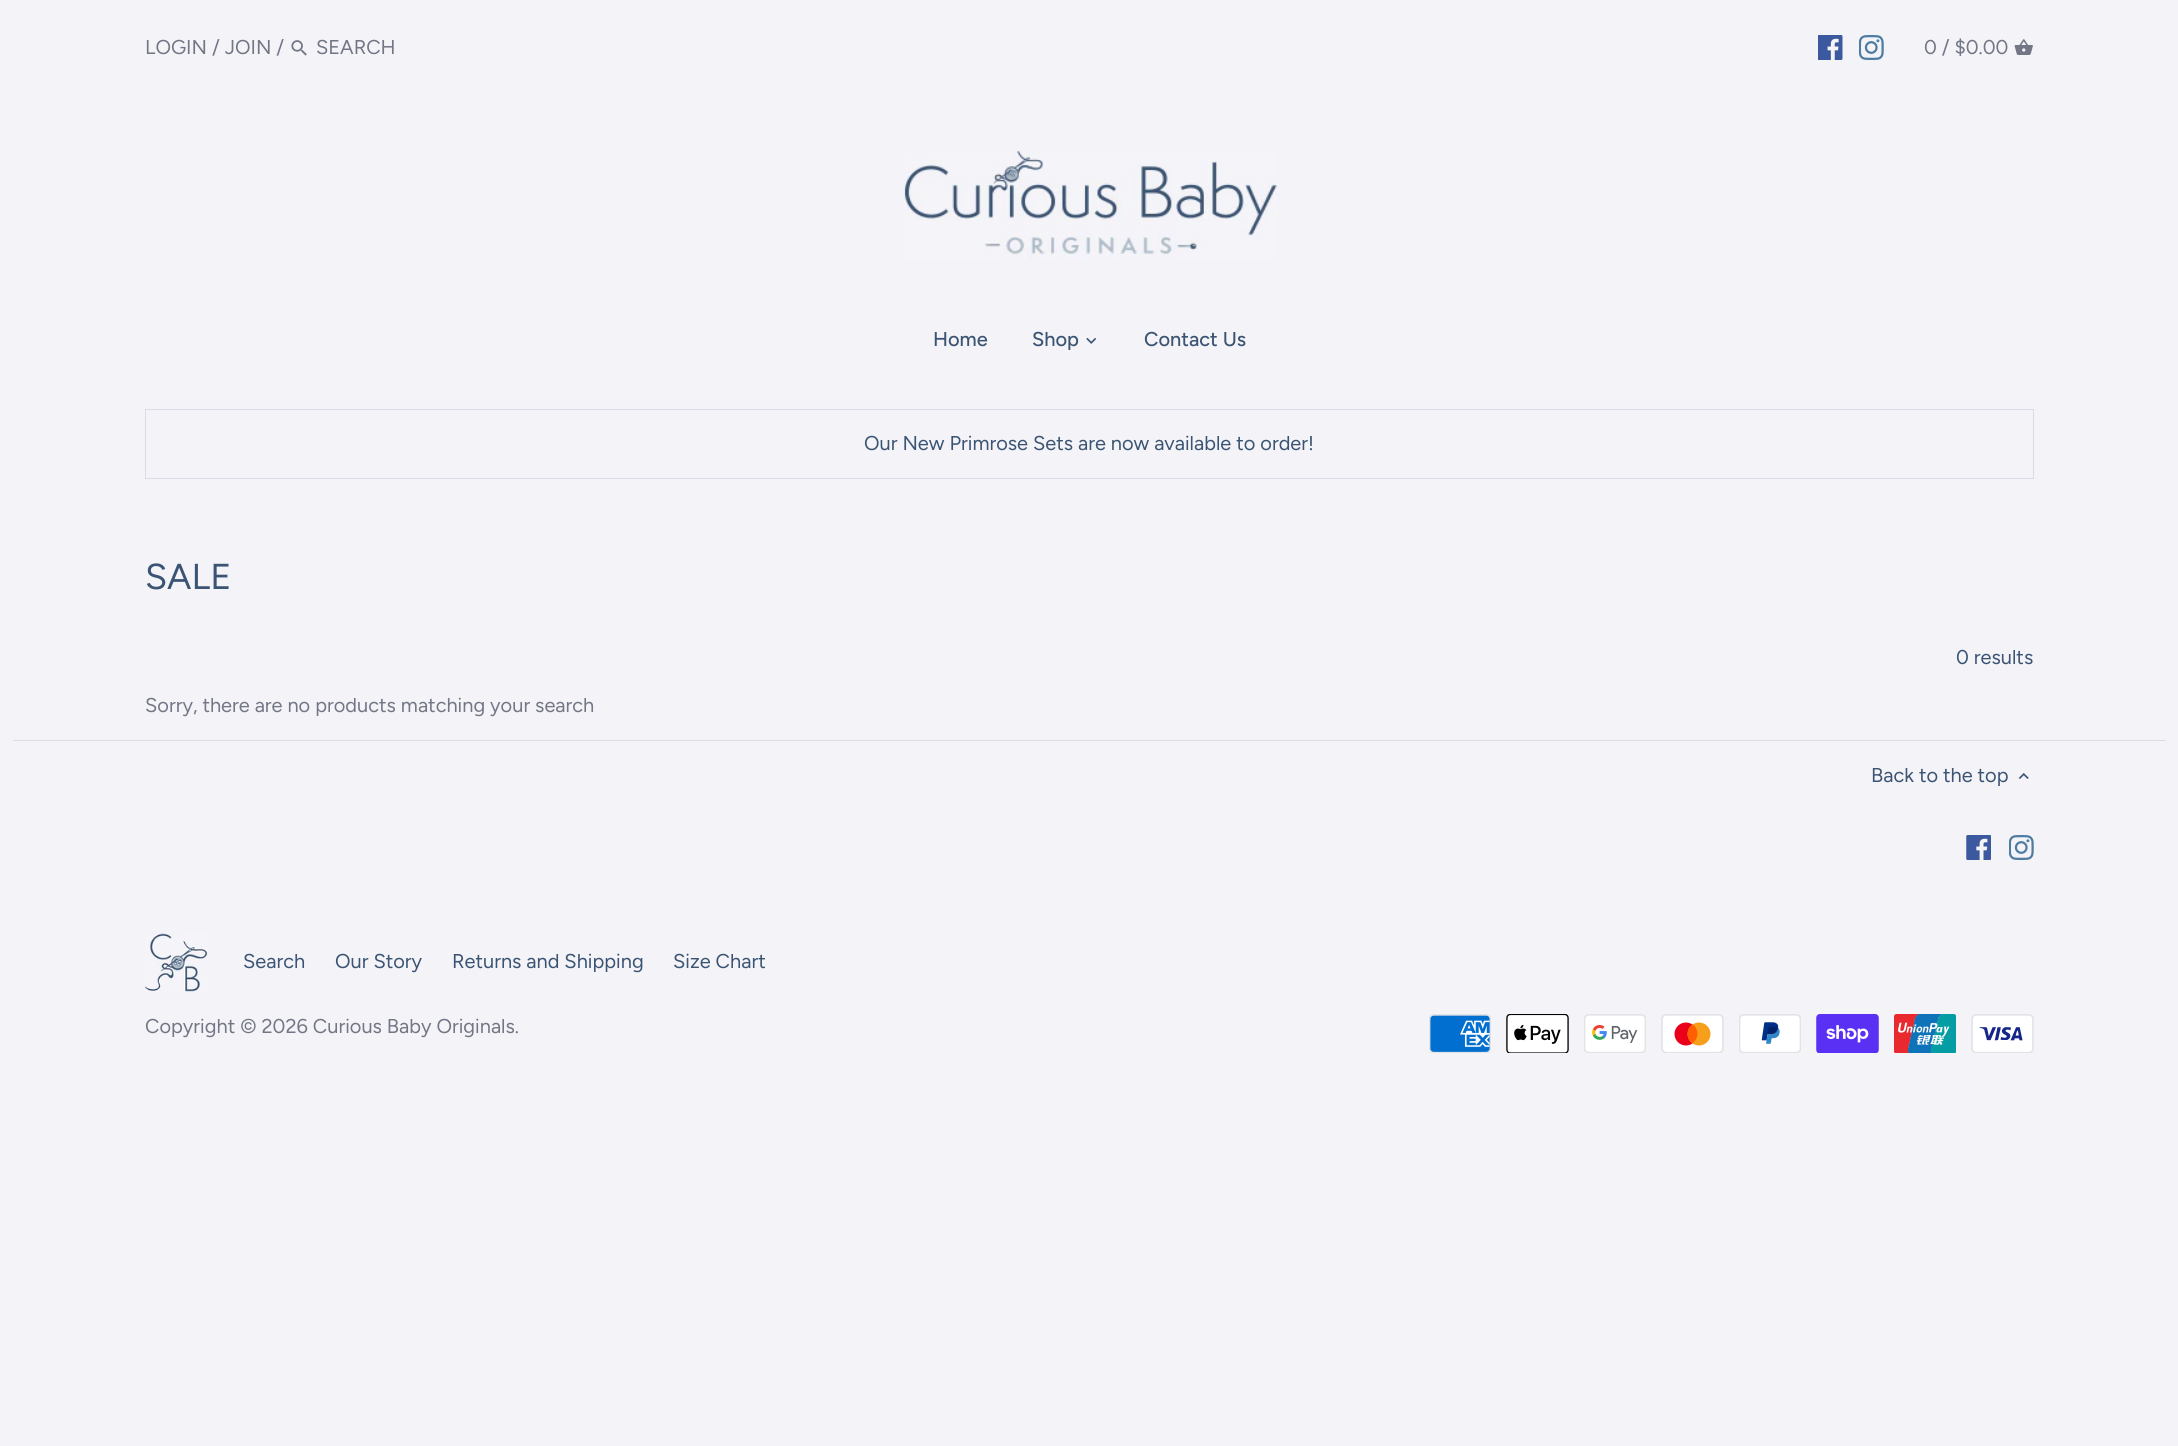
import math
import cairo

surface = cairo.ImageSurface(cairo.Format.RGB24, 2178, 1446)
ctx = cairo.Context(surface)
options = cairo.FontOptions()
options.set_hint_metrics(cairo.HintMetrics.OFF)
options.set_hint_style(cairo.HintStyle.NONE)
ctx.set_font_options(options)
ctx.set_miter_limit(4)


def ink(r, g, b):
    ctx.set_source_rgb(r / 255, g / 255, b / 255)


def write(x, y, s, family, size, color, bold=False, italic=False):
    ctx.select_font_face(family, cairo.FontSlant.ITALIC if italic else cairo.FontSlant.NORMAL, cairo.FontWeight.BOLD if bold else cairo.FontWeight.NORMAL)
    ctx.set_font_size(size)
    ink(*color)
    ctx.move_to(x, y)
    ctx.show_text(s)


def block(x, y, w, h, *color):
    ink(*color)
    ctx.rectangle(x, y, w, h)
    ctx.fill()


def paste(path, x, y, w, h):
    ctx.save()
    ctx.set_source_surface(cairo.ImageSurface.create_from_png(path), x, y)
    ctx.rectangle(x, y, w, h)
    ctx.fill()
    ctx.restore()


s1 = dict(family="Figtree", size=20, color=(114, 118, 133))
s2 = dict(family="Figtree Medium", size=20, color=(59, 84, 115))
s3 = dict(family="Figtree", size=20, color=(59, 84, 115))
s4 = dict(family="Figtree", size=36, color=(59, 84, 115))

ink(244, 244, 248)
ctx.paint()
write(145, 54, "LOGIN / JOIN /", **s1)
paste("pic1.png", 291, 40, 16, 16)
write(316, 54, "SEARCH", **s1)
paste("pic2.png", 1818, 35, 25, 25)
paste("pic3.png", 1859, 35, 25, 25)
write(1924, 54, "0 / $0.00", **s1)
paste("pic4.png", 2014, 39, 19, 16)
paste("pic5.png", 903, 150, 374, 110)
write(933, 346, "Home", **s2)
write(1032, 346, "Shop", **s2)
paste("pic6.png", 1086, 337, 11, 7)
write(1144, 346, "Contact Us", **s2)
ctx.rectangle(145.5, 409.5, 1888, 69)
ink(219, 219, 232)
ctx.set_line_width(1)
ctx.stroke()
write(864, 450, "Our New Primrose Sets are now available to order!", **s3)
write(145, 589, "SALE", **s4)
write(1956, 664, "0 results", **s3)
write(145, 712, "Sorry, there are no products matching your search", **s1)
block(13, 740, 2153, 1, 221, 221, 221)
write(1871, 782, "Back to the top", **s3)
paste("pic7.png", 2018, 773, 11, 6)
paste("pic8.png", 1966, 835, 25, 25)
paste("pic3.png", 2009, 835, 25, 25)
paste("pic9.png", 145, 932, 63, 62)
write(243, 968, "Search", **s3)
write(335, 968, "Our Story", **s3)
write(452, 968, "Returns and Shipping", **s3)
write(673, 968, "Size Chart", **s3)
write(145, 1033, "Copyright © 2026 Curious Baby Originals.", **s1)
paste("pic10.png", 1429, 1014, 62, 39)
paste("pic11.png", 1506, 1014, 63, 39)
paste("pic12.png", 1584, 1014, 62, 39)
paste("pic13.png", 1661, 1014, 63, 39)
paste("pic14.png", 1739, 1014, 62, 39)
paste("pic15.png", 1816, 1014, 63, 39)
paste("pic16.png", 1894, 1014, 62, 39)
paste("pic17.png", 1971, 1014, 63, 39)
surface.write_to_png("screenshot.png")
